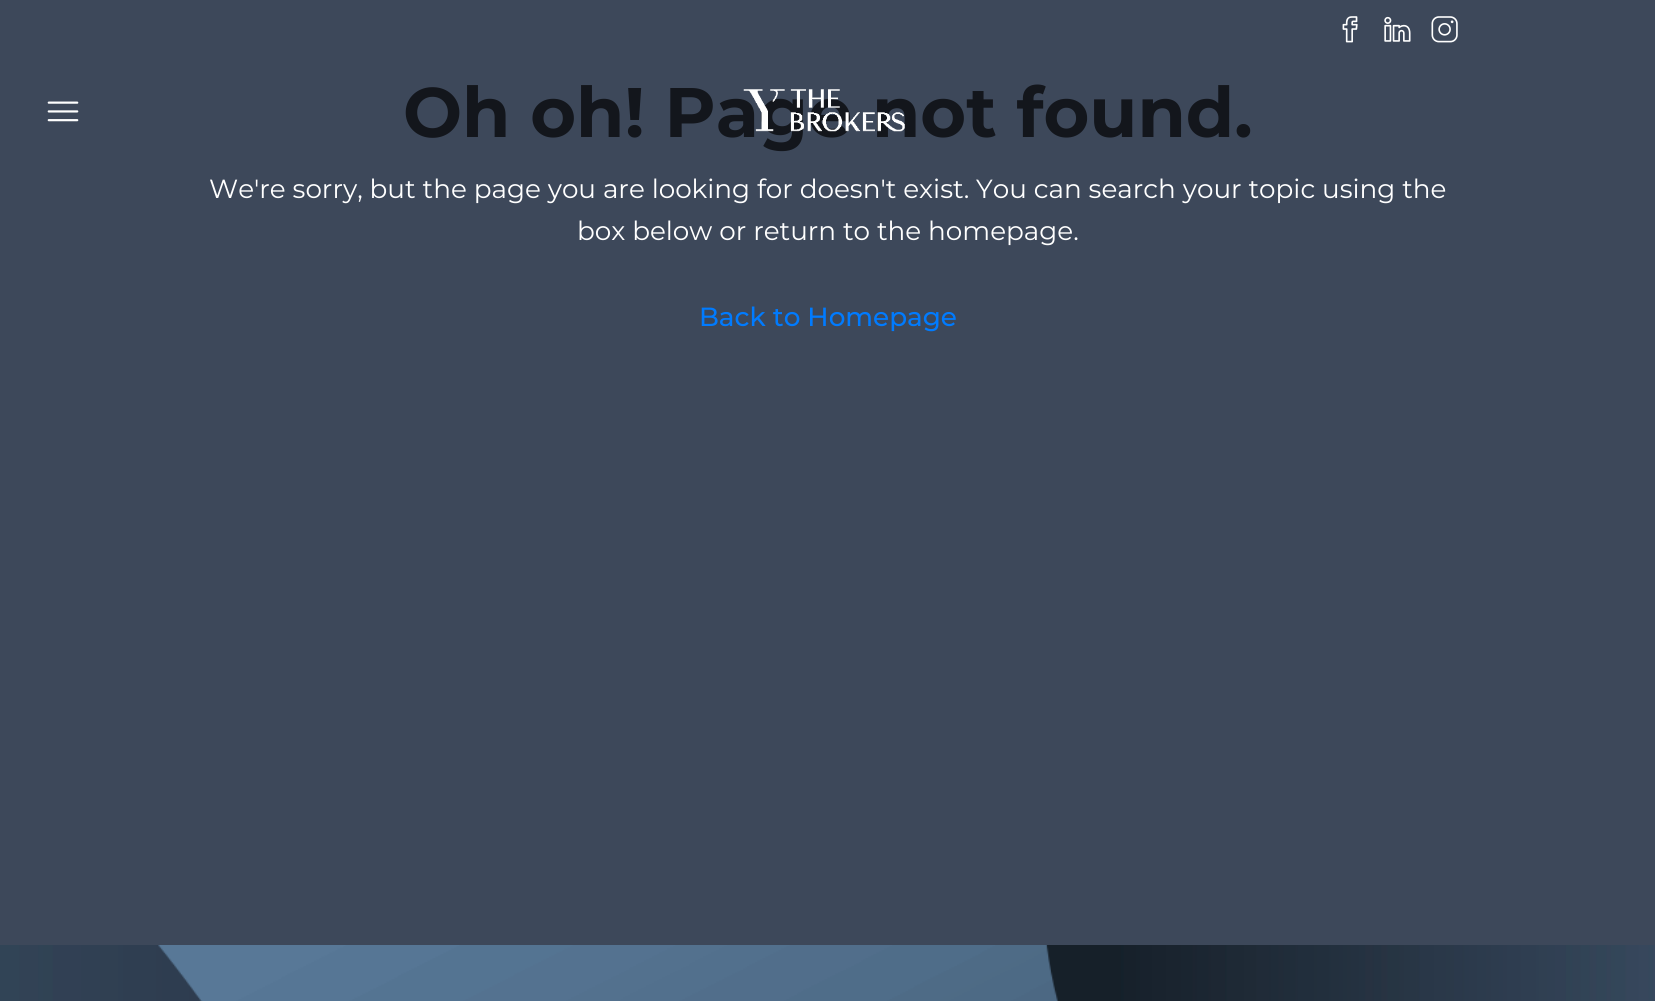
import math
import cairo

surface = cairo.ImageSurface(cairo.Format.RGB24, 1655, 1001)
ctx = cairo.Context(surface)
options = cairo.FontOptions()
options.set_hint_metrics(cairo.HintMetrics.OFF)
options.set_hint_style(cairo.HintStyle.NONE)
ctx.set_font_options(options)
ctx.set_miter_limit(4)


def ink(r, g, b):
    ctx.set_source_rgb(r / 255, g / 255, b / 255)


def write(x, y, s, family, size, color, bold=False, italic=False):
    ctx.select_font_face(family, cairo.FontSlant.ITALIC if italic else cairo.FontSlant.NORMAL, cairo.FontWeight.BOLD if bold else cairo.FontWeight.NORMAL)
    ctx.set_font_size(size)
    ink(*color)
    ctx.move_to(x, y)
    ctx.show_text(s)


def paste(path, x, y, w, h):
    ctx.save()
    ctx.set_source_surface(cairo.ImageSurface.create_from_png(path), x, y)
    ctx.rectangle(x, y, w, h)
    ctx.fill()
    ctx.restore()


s1 = dict(family="Montserrat", size=70, color=(19, 22, 28), bold=True)
s2 = dict(family="Montserrat", size=26.25, color=(255, 255, 255))
s3 = dict(family="Montserrat Medium", size=26.25, color=(0, 123, 255))

ink(61, 72, 90)
ctx.paint()
paste("pic1.png", 1342, 16, 16, 27)
paste("pic2.png", 1384, 16, 27, 26)
paste("pic3.png", 1431, 16, 27, 27)
paste("pic4.png", 47, 101, 32, 21)
write(403, 137, "Oh oh! Page not found.", **s1)
paste("pic5.png", 743, 89, 162, 43)
write(209, 198, "We're sorry, but the page you are looking for doesn't exist. You can search your topic using the", **s2)
write(577, 240, "box below or return to the homepage.", **s2)
write(699, 326, "Back to Homepage", **s3)
paste("pic6.png", 0, 945, 1655, 56)
surface.write_to_png("screenshot.png")
